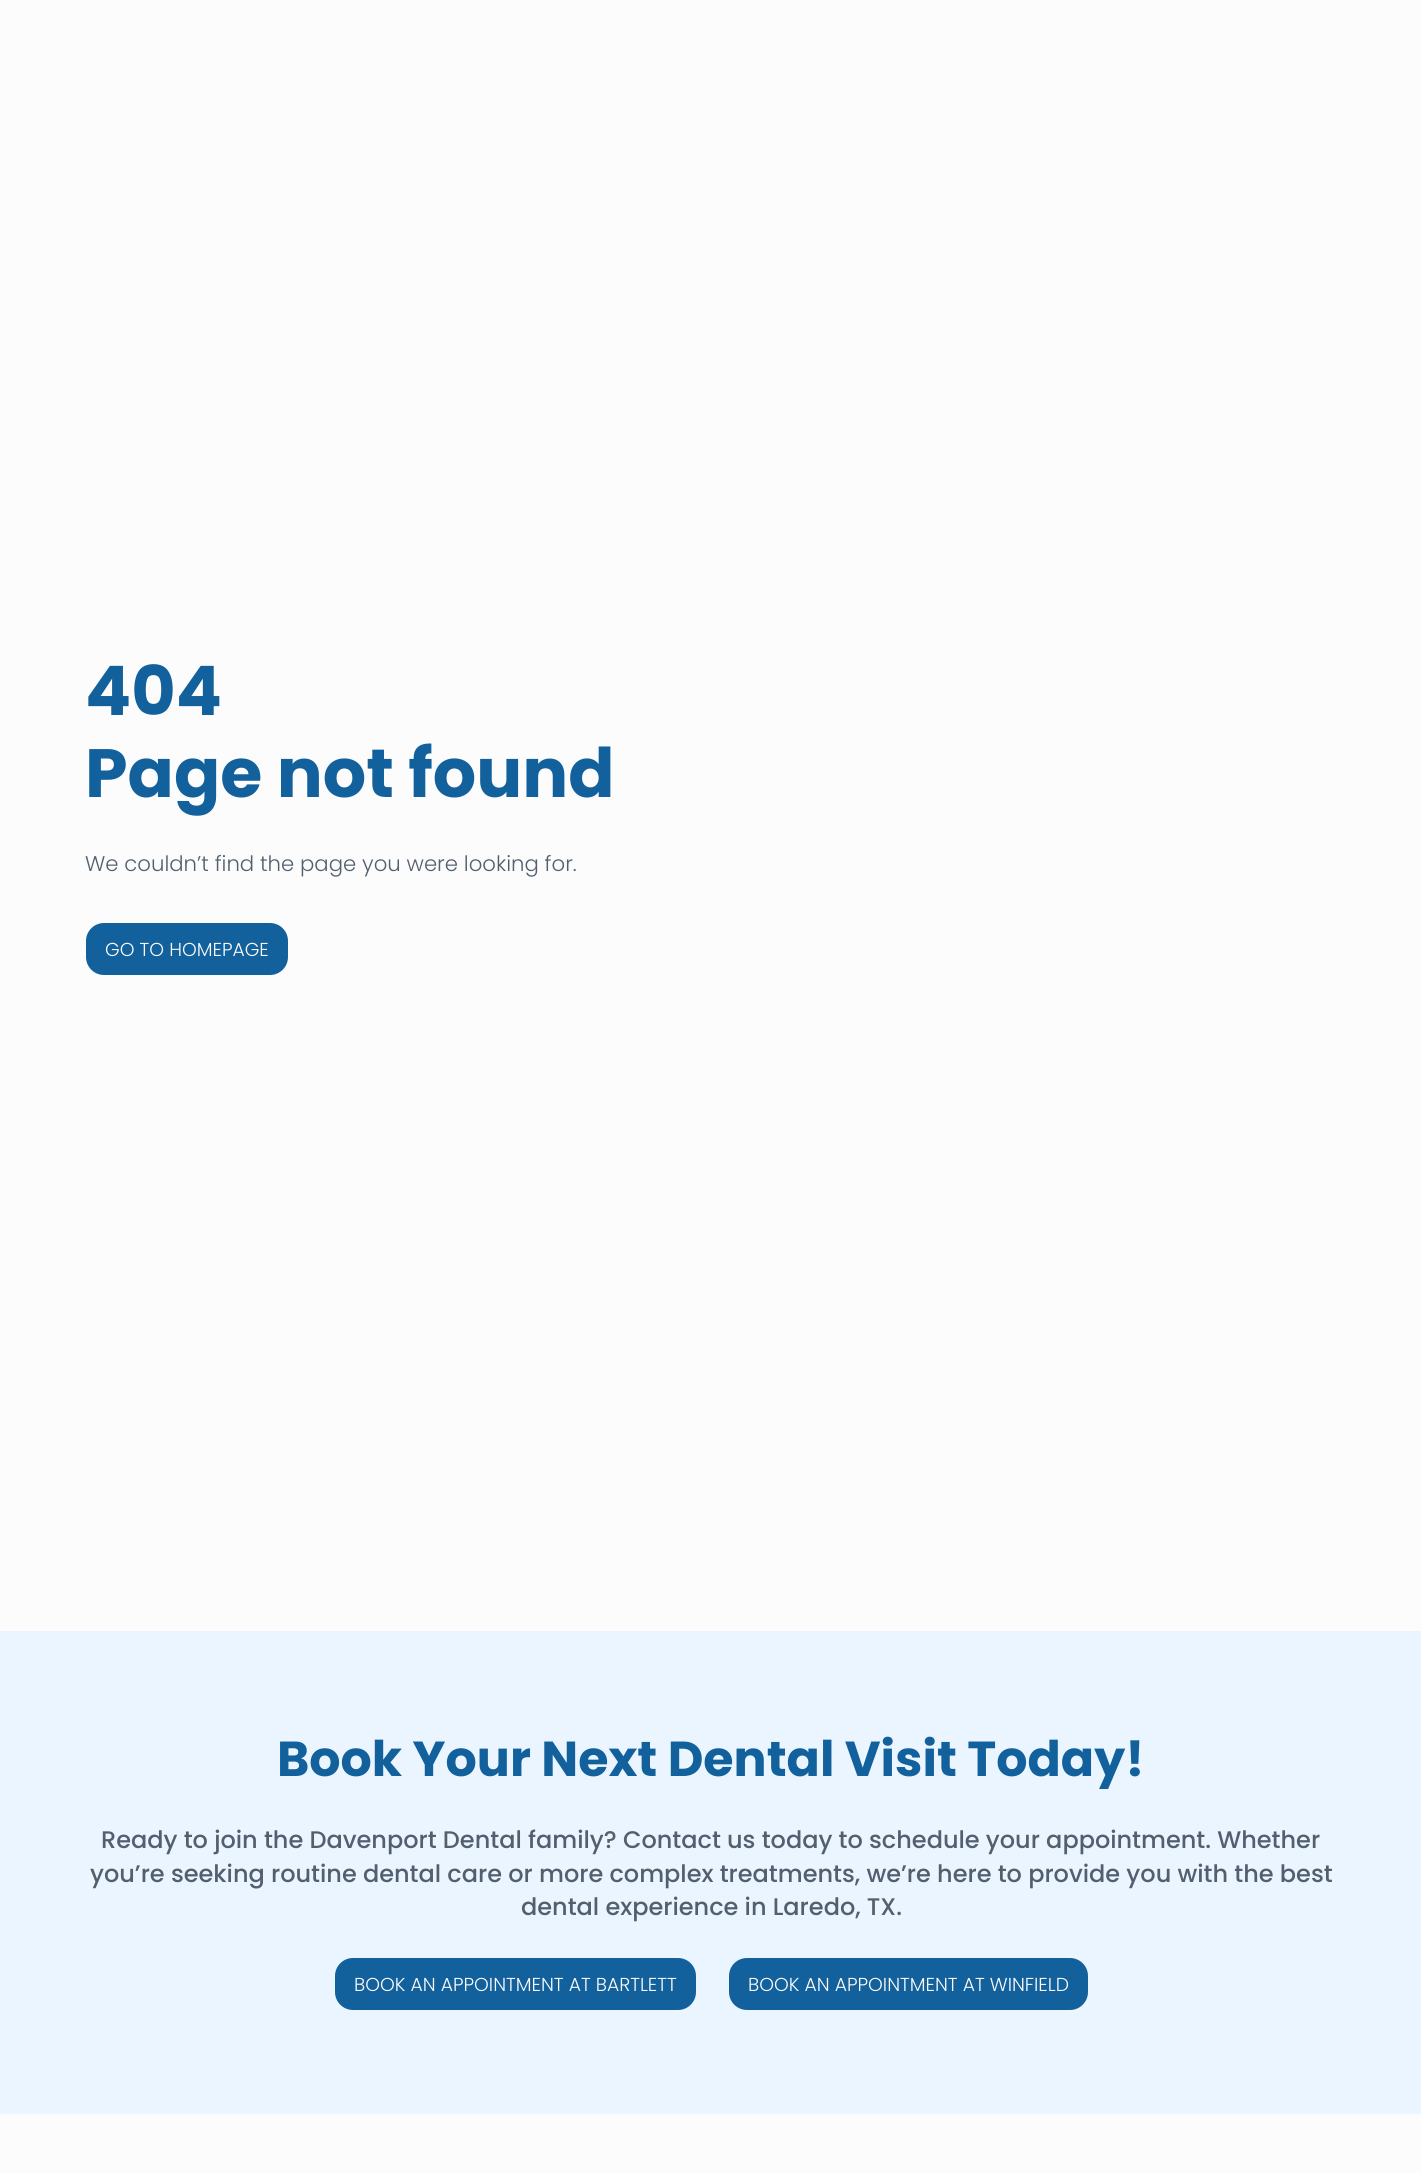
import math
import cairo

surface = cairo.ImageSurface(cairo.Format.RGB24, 1421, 2173)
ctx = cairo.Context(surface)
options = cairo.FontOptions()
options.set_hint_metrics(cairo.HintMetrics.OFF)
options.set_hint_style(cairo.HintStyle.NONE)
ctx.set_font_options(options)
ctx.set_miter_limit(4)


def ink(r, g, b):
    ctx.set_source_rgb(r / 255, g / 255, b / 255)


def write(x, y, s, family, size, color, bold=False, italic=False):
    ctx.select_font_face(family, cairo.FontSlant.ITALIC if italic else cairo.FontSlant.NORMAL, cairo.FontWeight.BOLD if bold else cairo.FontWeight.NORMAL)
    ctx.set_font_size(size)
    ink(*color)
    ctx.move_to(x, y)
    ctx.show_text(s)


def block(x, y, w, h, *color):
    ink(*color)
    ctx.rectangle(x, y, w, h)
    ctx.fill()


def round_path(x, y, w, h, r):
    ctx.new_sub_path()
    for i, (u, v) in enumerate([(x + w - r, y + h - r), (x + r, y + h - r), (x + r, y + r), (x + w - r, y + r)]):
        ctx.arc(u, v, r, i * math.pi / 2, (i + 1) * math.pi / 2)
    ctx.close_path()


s1 = dict(family="Poppins", size=68.25, color=(18, 97, 156), bold=True)
s2 = dict(family="Poppins Light", size=21.25, color=(82, 95, 111))
s3 = dict(family="Poppins Light", size=18.75, color=(252, 252, 252))
s4 = dict(family="Poppins", size=49.1, color=(18, 97, 156), bold=True)
s5 = dict(family="Poppins Medium", size=24, color=(82, 95, 111))

ink(252, 252, 252)
ctx.paint()
write(85, 715, "404", **s1)
write(85, 797, "Page not found", **s1)
write(85, 871, "We couldn’t find the page you were looking for.", **s2)
ink(18, 97, 156)
round_path(86, 923, 202, 52, 18)
ctx.fill()
write(105, 956, "GO TO HOMEPAGE", **s3)
block(0, 1631, 1421, 483, 234, 245, 255)
write(277, 1776, "Book Your Next Dental Visit Today!", **s4)
write(101, 1848, "Ready to join the Davenport Dental family? Contact us today to schedule your appointment. Whether", **s5)
write(90, 1882, "you’re seeking routine dental care or more complex treatments, we’re here to provide you with the best", **s5)
write(521, 1915, "dental experience in Laredo, TX.", **s5)
ink(18, 97, 156)
round_path(335, 1958, 361, 52, 18)
ctx.fill()
write(354, 1991, "BOOK AN APPOINTMENT AT BARTLETT", **s3)
ink(18, 97, 156)
round_path(729, 1958, 359, 52, 18)
ctx.fill()
write(748, 1991, "BOOK AN APPOINTMENT AT WINFIELD", **s3)
surface.write_to_png("screenshot.png")
